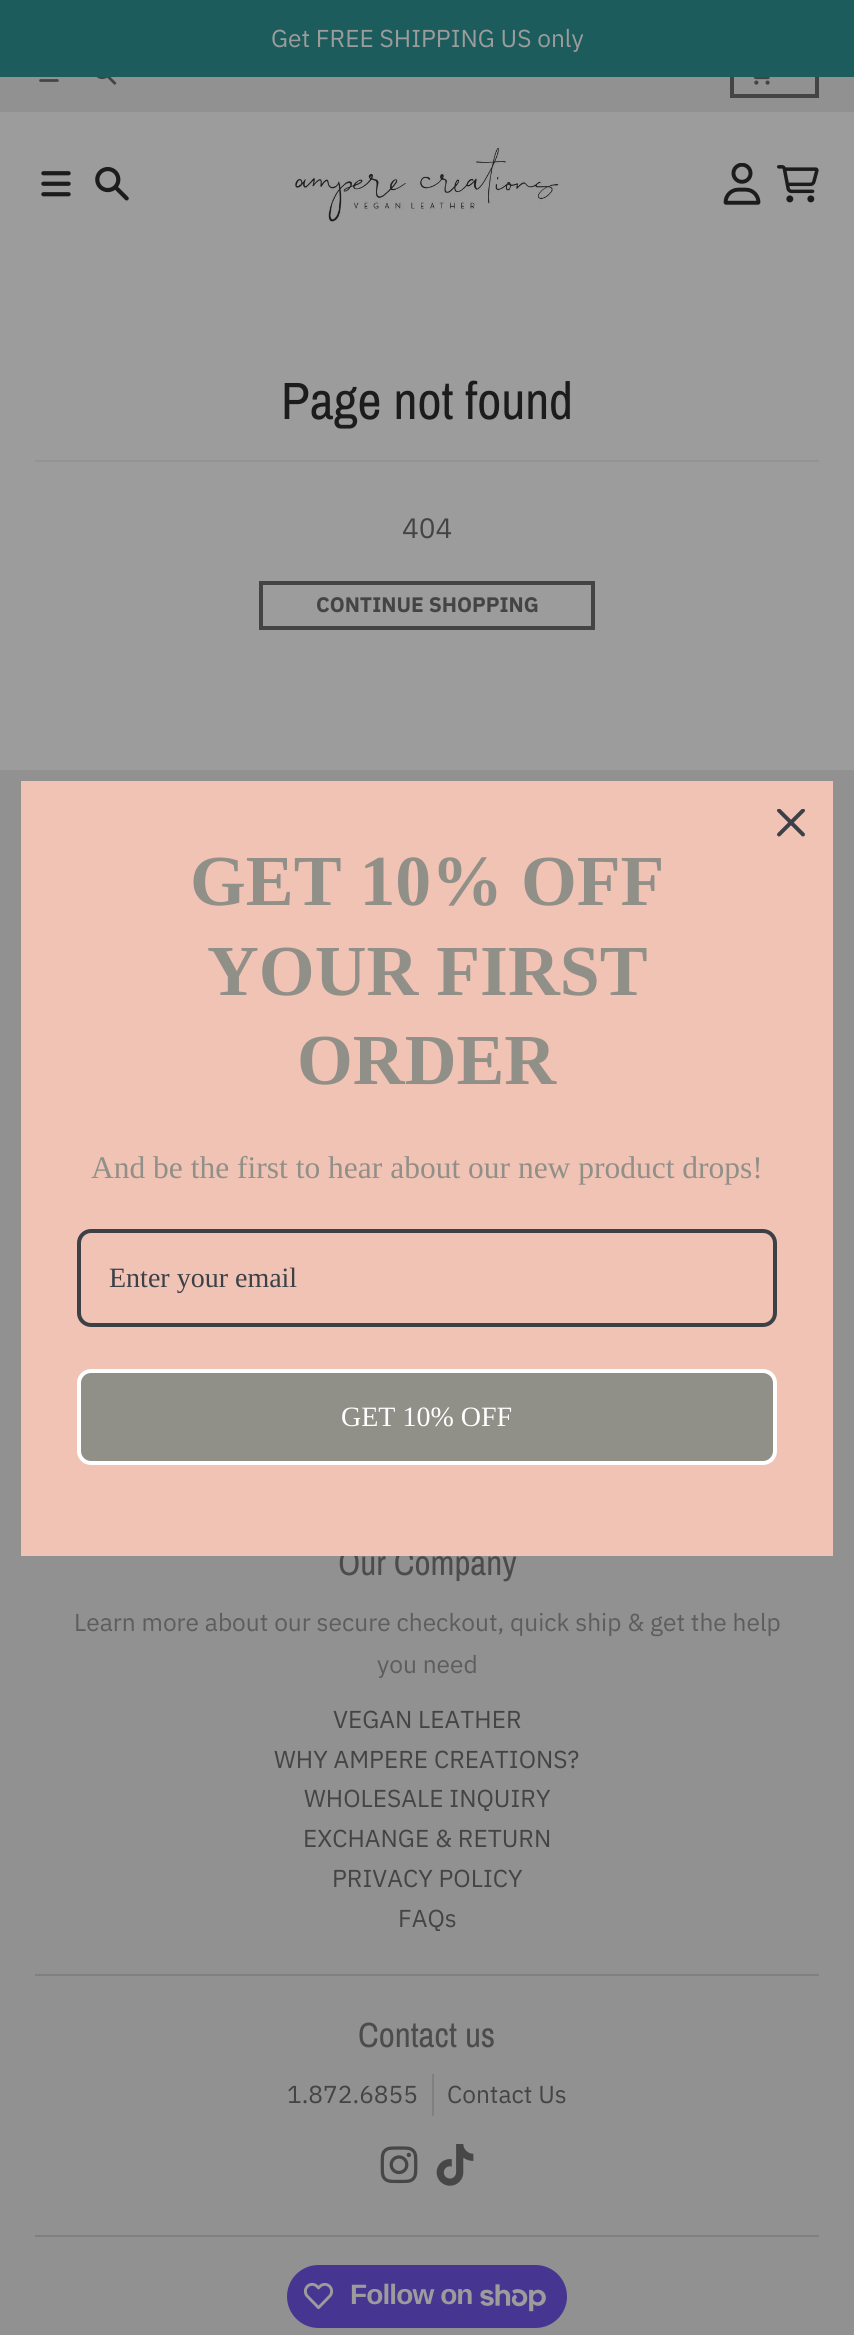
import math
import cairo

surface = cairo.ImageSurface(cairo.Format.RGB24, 854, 2335)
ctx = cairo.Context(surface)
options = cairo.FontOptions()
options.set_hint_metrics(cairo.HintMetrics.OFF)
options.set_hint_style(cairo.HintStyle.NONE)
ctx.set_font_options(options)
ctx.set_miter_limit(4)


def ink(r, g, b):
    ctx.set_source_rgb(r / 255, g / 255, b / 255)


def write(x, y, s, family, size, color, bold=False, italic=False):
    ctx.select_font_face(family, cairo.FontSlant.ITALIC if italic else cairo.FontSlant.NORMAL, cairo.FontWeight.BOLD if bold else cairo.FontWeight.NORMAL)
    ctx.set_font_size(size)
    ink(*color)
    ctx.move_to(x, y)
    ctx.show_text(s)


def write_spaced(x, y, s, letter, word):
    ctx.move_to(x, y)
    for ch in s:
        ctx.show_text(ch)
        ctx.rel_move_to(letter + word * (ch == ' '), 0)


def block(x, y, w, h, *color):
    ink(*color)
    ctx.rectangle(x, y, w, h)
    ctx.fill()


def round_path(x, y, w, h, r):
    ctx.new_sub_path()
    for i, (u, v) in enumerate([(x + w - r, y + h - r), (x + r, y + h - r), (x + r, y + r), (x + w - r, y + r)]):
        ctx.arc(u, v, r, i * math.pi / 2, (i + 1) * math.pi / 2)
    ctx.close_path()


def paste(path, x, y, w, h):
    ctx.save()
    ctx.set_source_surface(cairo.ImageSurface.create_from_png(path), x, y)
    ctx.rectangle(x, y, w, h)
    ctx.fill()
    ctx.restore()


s1 = dict(family="IBM Plex Sans", size=24.5, color=(156, 156, 156))
s2 = dict(family="Archivo Narrow", size=52.5, color=(28, 28, 28))
s3 = dict(family="IBM Plex Sans", size=28, color=(68, 68, 68))
s4 = dict(family="IBM Plex Sans", size=21, color=(68, 68, 68), bold=True)
s5 = dict(family="Archivo Narrow", size=35, color=(76, 76, 76))
s6 = dict(family="Liberation Serif", size=71.75, color=(144, 143, 136), bold=True)
s7 = dict(family="Liberation Serif", size=31.5, color=(144, 143, 136))
s8 = dict(family="Liberation Serif", size=28, color=(60, 65, 72))
s9 = dict(family="Liberation Serif", size=28, color=(255, 255, 255))
s10 = dict(family="IBM Plex Sans", size=24.5, color=(93, 93, 93))
s11 = dict(family="IBM Plex Sans", size=24.5, color=(68, 68, 68))

ink(145, 145, 145)
ctx.paint()
ctx.rectangle(732, 51, 85, 45)
ink(68, 68, 68)
ctx.set_line_width(4)
ctx.stroke()
block(0, 0, 854, 77, 28, 92, 92)
write(271, 47, "Get FREE SHIPPING US only", **s1)
paste("pic1.png", 39, 79, 20, 3)
paste("pic2.png", 96, 77, 21, 8)
paste("pic3.png", 753, 77, 17, 8)
block(0, 112, 854, 658, 156, 156, 156)
paste("pic4.png", 41, 171, 30, 26)
paste("pic5.png", 95, 166, 34, 35)
paste("pic6.png", 295, 148, 265, 74)
paste("pic7.png", 723, 163, 38, 42)
paste("pic8.png", 777, 165, 42, 38)
block(35, 460, 784, 2, 147, 147, 147)
write(281, 419, "Page not found", **s2)
write(402, 538, "404", **s3)
ctx.rectangle(261, 583, 332, 45)
ctx.stroke()
write(316, 612, "CONTINUE SHOPPING", **s4)
write(338, 1575, "Our Company", **s5)
block(21, 781, 812, 775, 240, 195, 180)
paste("pic9.png", 777, 809, 28, 28)
write(190, 905, "GET 10% OFF", **s6)
write(207, 995, "YOUR FIRST", **s6)
write(297, 1084, "ORDER", **s6)
write(91, 1178, "And be the first to hear about our new product drops!", **s7)
round_path(79, 1231, 696, 94, 12)
ink(60, 65, 72)
ctx.stroke()
write(109, 1287, "Enter your email", **s8)
ink(144, 143, 136)
round_path(79, 1371, 696, 92, 12)
ctx.fill_preserve()
ink(255, 255, 255)
ctx.stroke()
write(341, 1426, "GET 10% OFF", **s9)
write(74, 1631, "Learn more about our secure checkout, quick ship & get the help", **s10)
write(377, 1673, "you need", **s10)
write(333, 1728, "VEGAN LEATHER", **s11)
write(274, 1768, "WHY AMPERE CREATIONS?", **s11)
write(304, 1807, "WHOLESALE INQUIRY", **s11)
write(303, 1847, "EXCHANGE & RETURN", **s11)
write(332, 1887, "PRIVACY POLICY", **s11)
write(398, 1927, "FAQs", **s11)
block(35, 1974, 784, 2, 128, 128, 128)
write(358, 2047, "Contact us", **s5)
write(287, 2103, "1.872.6855", **s11)
block(432, 2074, 2, 42, 128, 128, 128)
write(447, 2103, "Contact Us", **s11)
paste("pic10.png", 380, 2146, 38, 38)
paste("pic11.png", 436, 2144, 38, 42)
block(35, 2235, 784, 2, 128, 128, 128)
ink(70, 54, 146)
round_path(287, 2265, 280, 63, 31.5)
ctx.fill()
paste("pic12.png", 303, 2282, 31, 28)
ctx.select_font_face("Liberation Sans", cairo.FontSlant.NORMAL, cairo.FontWeight.BOLD)
ctx.set_font_size(28)
ink(156, 156, 156)
write_spaced(350, 2304, "Follow on", -0.9, 0)
paste("pic13.png", 480, 2284, 66, 28)
surface.write_to_png("screenshot.png")
